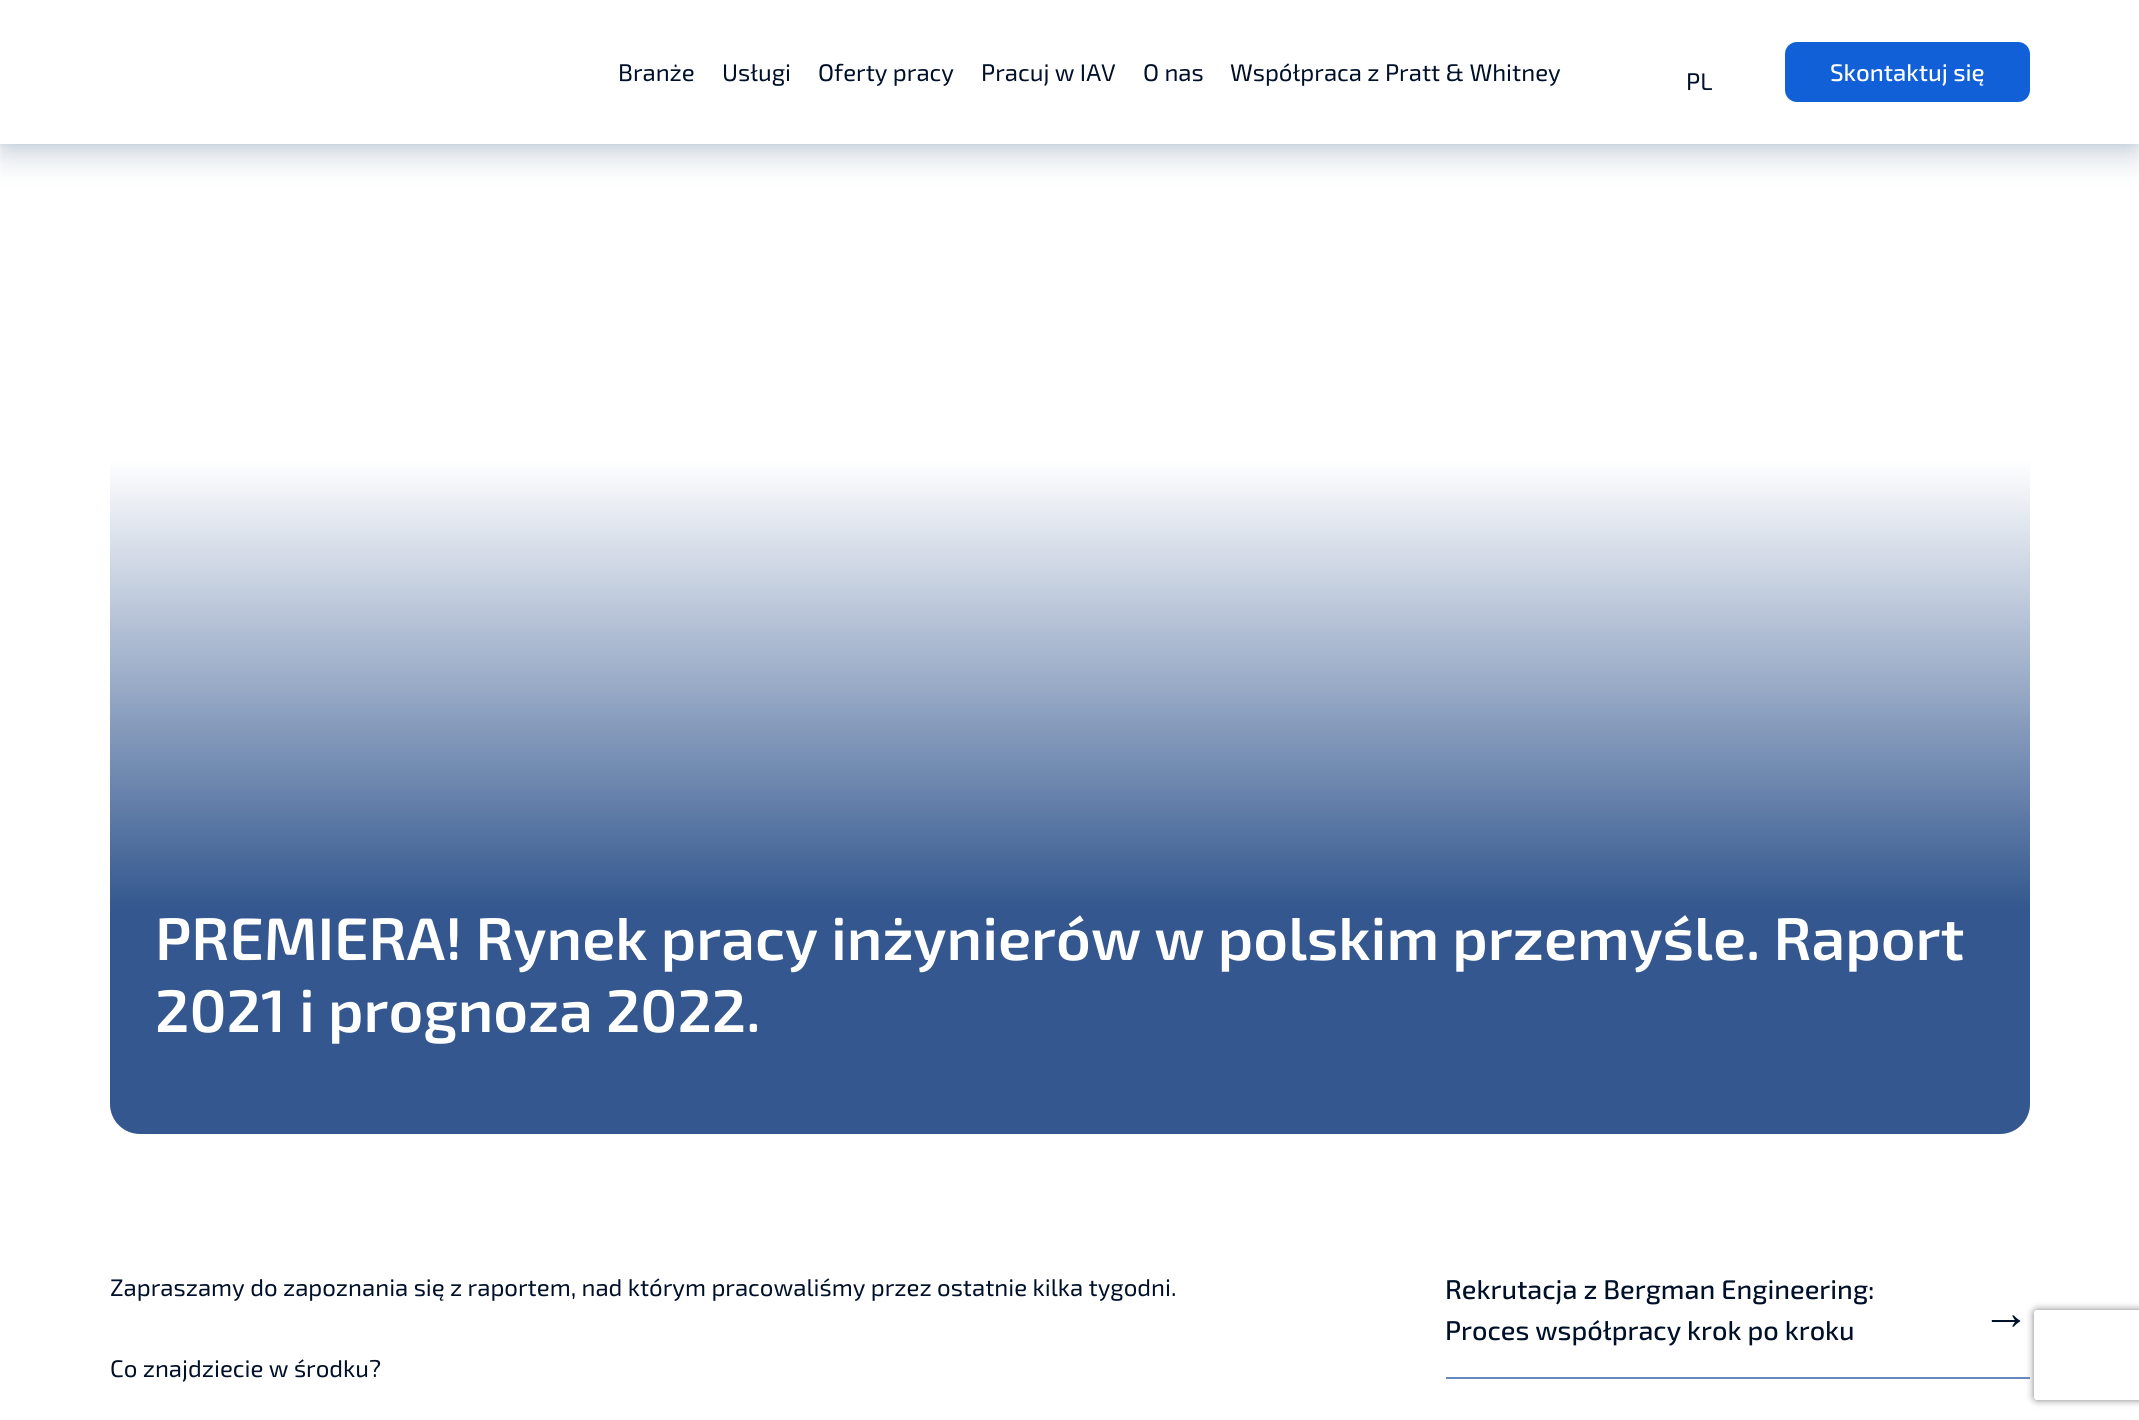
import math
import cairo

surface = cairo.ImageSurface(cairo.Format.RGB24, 2139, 1420)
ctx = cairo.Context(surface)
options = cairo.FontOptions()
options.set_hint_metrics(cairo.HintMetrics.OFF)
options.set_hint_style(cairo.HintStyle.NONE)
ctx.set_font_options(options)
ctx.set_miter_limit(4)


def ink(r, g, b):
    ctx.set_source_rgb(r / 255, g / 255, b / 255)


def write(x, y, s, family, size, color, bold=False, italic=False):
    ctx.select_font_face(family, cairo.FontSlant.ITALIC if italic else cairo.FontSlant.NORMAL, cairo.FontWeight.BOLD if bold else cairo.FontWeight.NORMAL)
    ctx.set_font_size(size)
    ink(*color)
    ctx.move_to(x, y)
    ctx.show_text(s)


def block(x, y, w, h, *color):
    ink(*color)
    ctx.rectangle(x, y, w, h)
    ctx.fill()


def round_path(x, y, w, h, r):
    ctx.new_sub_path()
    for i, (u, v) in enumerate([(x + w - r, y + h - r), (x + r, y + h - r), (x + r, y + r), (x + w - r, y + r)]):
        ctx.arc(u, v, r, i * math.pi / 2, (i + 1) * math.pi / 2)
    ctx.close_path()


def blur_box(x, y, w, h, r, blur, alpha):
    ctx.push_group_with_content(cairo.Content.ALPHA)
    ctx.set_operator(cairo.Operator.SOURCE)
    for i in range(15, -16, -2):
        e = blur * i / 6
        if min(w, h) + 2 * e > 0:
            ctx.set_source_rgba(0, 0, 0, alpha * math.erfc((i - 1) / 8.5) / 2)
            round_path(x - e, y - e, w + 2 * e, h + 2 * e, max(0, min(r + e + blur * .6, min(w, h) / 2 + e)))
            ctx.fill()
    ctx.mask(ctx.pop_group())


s1 = dict(family="Exo 2", size=24, color=(0, 16, 41))
s2 = dict(family="Exo 2 Medium", size=24, color=(255, 255, 255))
s3 = dict(family="Exo 2 SemiBold", size=60, color=(255, 255, 255))
s4 = dict(family="Exo 2 Medium", size=27, color=(0, 16, 41))
s5 = dict(family="Liberation Sans", size=48, color=(0, 16, 41))

ink(255, 255, 255)
ctx.paint()
ink(0, 47, 92)
blur_box(0, 30, 2139, 144, 0, 9, 0.05)
blur_box(0, 14, 2139, 144, 0, 7, 0.09)
blur_box(0, 3, 2139, 144, 0, 4, 0.1)
block(0, 0, 2139, 144, 255, 255, 255)
write(618, 81, "Branże", **s1)
write(722, 81, "Usługi", **s1)
write(818, 81, "Oferty pracy", **s1)
write(981, 81, "Pracuj w IAV", **s1)
write(1143, 81, "O nas", **s1)
write(1230, 81, "Współpraca z Pratt & Whitney", **s1)
write(1686, 90, "PL", **s1)
ink(17, 96, 216)
round_path(1785, 42, 245, 60, 12)
ctx.fill()
write(1830, 81, "Skontaktuj się", **s2)
gradient = cairo.LinearGradient(1070, 234, 1070, 1134)
gradient.add_color_stop_rgba(0.25, 1, 1, 1, 1)
gradient.add_color_stop_rgba(0.75, 0.2, 0.341, 0.557, 1)
ctx.set_source(gradient)
round_path(110, 234, 1920, 900, 30)
ctx.fill()
write(155, 960, "PREMIERA! Rynek pracy inżynierów w polskim przemyśle. Raport", **s3)
write(155, 1032, "2021 i prognoza 2022.", **s3)
write(110, 1296, "Zapraszamy do zapoznania się z raportem, nad którym pracowaliśmy przez ostatnie kilka tygodni.", **s1)
write(110, 1377, "Co znajdziecie w środku?", **s1)
block(1446, 1377, 584, 2, 102, 137, 193)
write(1445, 1299, "Rekrutacja z Bergman Engineering:", **s4)
write(1445, 1340, "Proces współpracy krok po kroku", **s4)
write(1982, 1329, "→", **s5)
ctx.save()
ctx.set_fill_rule(cairo.FillRule.EVEN_ODD)
ctx.new_path()
ctx.move_to(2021, 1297)
ctx.line_to(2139, 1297)
ctx.line_to(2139, 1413)
ctx.line_to(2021, 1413)
ctx.close_path()
ctx.move_to(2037, 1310)
ctx.line_to(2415, 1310)
ctx.curve_to(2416.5, 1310, 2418, 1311.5, 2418, 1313)
ctx.line_to(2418, 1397)
ctx.curve_to(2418, 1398.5, 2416.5, 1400, 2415, 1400)
ctx.line_to(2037, 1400)
ctx.curve_to(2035.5, 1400, 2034, 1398.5, 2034, 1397)
ctx.line_to(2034, 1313)
ctx.curve_to(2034, 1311.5, 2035.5, 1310, 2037, 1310)
ctx.close_path()
ctx.clip()
ink(128, 128, 128)
blur_box(2034, 1310, 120, 90, 3, 4, 1)
ctx.restore()
surface.write_to_png("screenshot.png")
